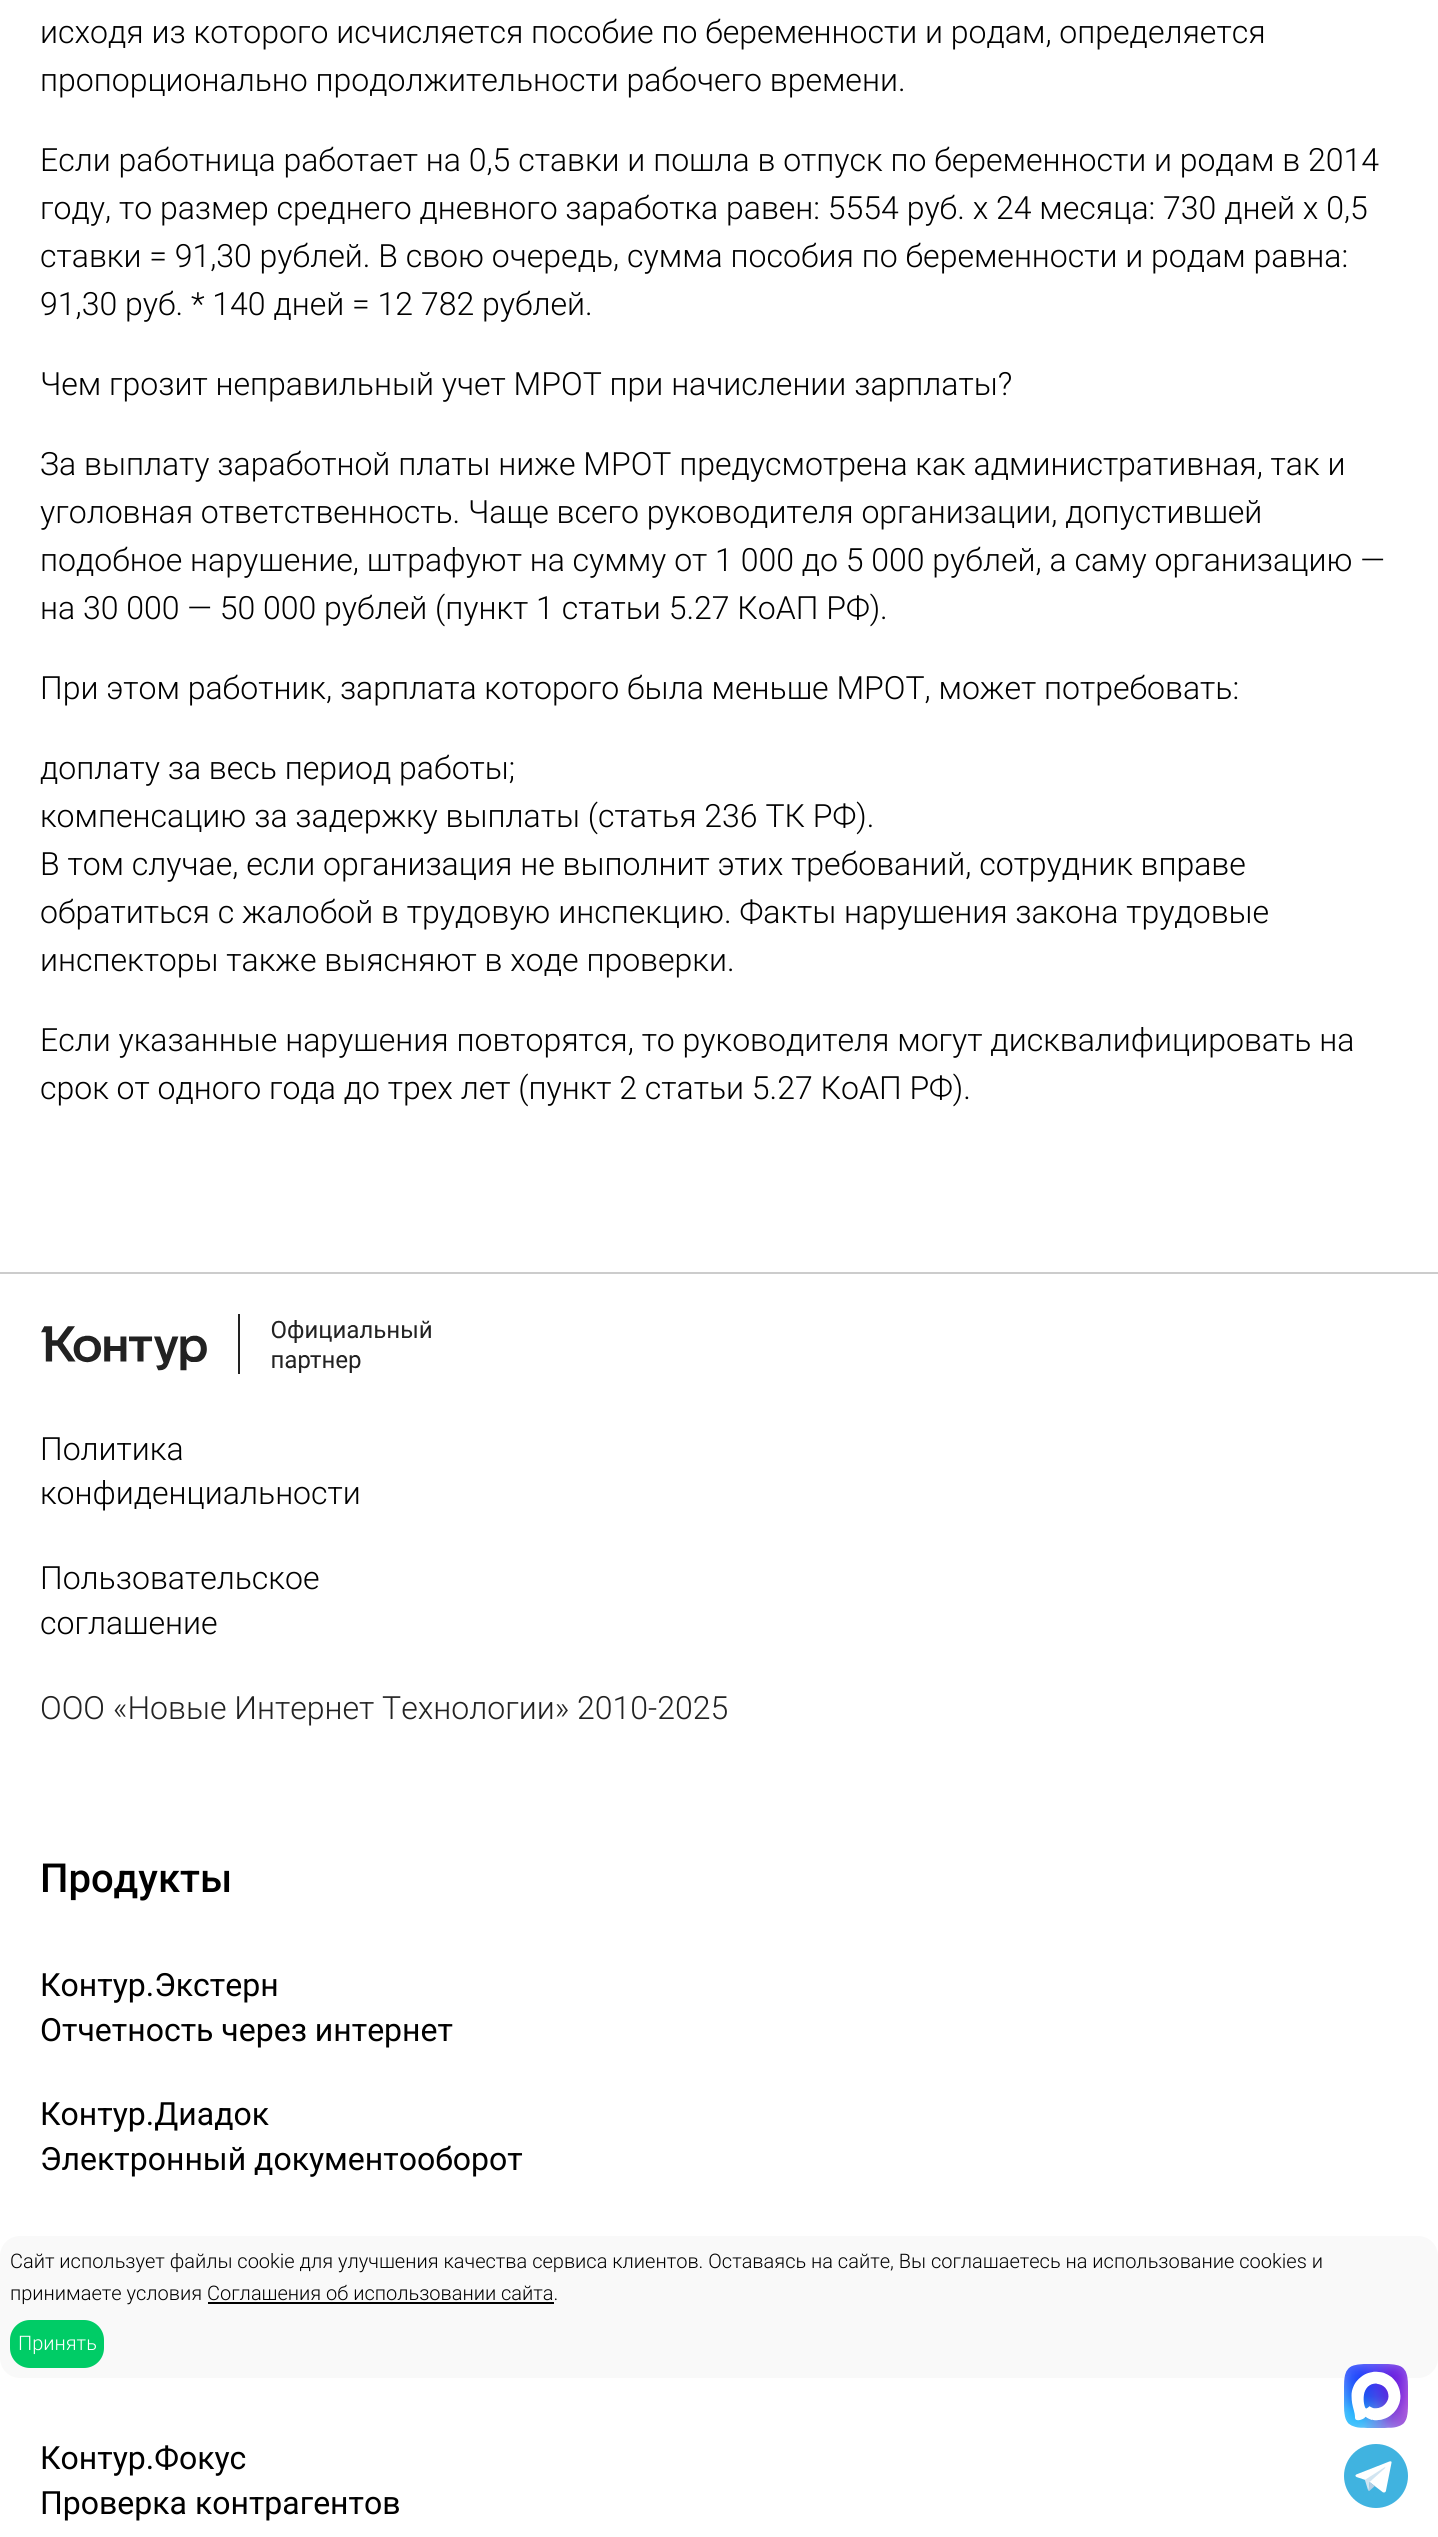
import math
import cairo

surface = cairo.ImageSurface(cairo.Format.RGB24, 1438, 2537)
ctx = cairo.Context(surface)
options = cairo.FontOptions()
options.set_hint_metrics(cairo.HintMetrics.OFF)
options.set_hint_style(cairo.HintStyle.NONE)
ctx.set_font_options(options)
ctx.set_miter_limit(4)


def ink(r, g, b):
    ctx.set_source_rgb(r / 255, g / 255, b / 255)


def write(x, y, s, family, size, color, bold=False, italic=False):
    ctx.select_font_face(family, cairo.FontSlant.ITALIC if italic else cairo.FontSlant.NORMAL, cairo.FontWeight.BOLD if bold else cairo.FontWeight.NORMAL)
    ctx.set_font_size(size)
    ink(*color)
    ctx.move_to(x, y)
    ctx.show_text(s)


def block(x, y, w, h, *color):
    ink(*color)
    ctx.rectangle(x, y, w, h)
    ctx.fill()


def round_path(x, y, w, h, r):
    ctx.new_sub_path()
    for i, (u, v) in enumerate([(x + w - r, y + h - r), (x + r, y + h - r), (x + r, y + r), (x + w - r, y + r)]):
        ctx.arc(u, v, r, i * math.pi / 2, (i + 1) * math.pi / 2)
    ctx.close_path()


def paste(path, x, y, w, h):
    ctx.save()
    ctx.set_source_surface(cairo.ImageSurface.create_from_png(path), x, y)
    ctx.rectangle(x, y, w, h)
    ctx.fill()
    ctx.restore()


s1 = dict(family="Roboto Light", size=32, color=(0, 0, 0))
s2 = dict(family="Roboto Light", size=32, color=(34, 34, 34))
s3 = dict(family="Roboto Medium", size=40, color=(0, 0, 0))
s4 = dict(family="Roboto", size=32, color=(0, 0, 0))
s5 = dict(family="Roboto Light", size=20, color=(0, 0, 0))
s6 = dict(family="Roboto Light", size=20, color=(255, 255, 255))

ink(255, 255, 255)
ctx.paint()
write(40, 43, "исходя из которого исчисляется пособие по беременности и родам, определяется", **s1)
write(40, 91, "пропорционально продолжительности рабочего времени.", **s1)
write(40, 171, "Если работница работает на 0,5 ставки и пошла в отпуск по беременности и родам в 2014", **s1)
write(40, 219, "году, то размер среднего дневного заработка равен: 5554 руб. x 24 месяца: 730 дней x 0,5", **s1)
write(40, 267, "ставки = 91,30 рублей. В свою очередь, сумма пособия по беременности и родам равна:", **s1)
write(40, 315, "91,30 руб. * 140 дней = 12 782 рублей.", **s1)
write(40, 395, "Чем грозит неправильный учет МРОТ при начислении зарплаты?", **s1)
write(40, 475, "За выплату заработной платы ниже МРОТ предусмотрена как административная, так и", **s1)
write(40, 523, "уголовная ответственность. Чаще всего руководителя организации, допустившей", **s1)
write(40, 571, "подобное нарушение, штрафуют на сумму от 1 000 до 5 000 рублей, а саму организацию —", **s1)
write(40, 619, "на 30 000 — 50 000 рублей (пункт 1 статьи 5.27 КоАП РФ).", **s1)
write(40, 699, "При этом работник, зарплата которого была меньше МРОТ, может потребовать:", **s1)
write(40, 779, "доплату за весь период работы;", **s1)
write(40, 827, "компенсацию за задержку выплаты (статья 236 ТК РФ).", **s1)
write(40, 875, "В том случае, если организация не выполнит этих требований, сотрудник вправе", **s1)
write(40, 923, "обратиться с жалобой в трудовую инспекцию. Факты нарушения закона трудовые", **s1)
write(40, 971, "инспекторы также выясняют в ходе проверки.", **s1)
write(40, 1051, "Если указанные нарушения повторятся, то руководителя могут дисквалифицировать на", **s1)
write(40, 1099, "срок от одного года до трех лет (пункт 2 статьи 5.27 КоАП РФ).", **s1)
block(0, 1272, 1438, 2, 204, 204, 204)
paste("pic1.png", 41, 1314, 390, 60)
write(40, 1460, "Политика", **s1)
write(40, 1504, "конфиденциальности", **s1)
write(40, 1589, "Пользовательское", **s1)
write(40, 1634, "соглашение", **s1)
write(40, 1719, "ООО «Новые Интернет Технологии» 2010-2025", **s2)
write(40, 1892, "Продукты", **s3)
write(40, 1996, "Контур.Экстерн", **s4)
write(40, 2041, "Отчетность через интернет", **s4)
write(40, 2125, "Контур.Диадок", **s4)
write(40, 2170, "Электронный документооборот", **s4)
write(40, 2469, "Контур.Фокус", **s4)
write(40, 2514, "Проверка контрагентов", **s4)
ink(249, 249, 249)
round_path(0, 2236, 1438, 142, 20)
ctx.fill()
write(10, 2268, "Сайт использует файлы cookie для улучшения качества сервиса клиентов. Оставаясь на сайте, Вы соглашаетесь на использование cookies и", **s5)
write(10, 2300, "принимаете условия Соглашения об использовании сайта.", **s5)
block(208, 2302, 346, 2, 0, 0, 0)
ink(0, 204, 102)
round_path(10, 2320, 94, 48, 20)
ctx.fill()
write(18, 2350, "Принять", **s6)
paste("pic2.png", 1344, 2364, 64, 64)
paste("pic3.png", 1344, 2444, 64, 64)
surface.write_to_png("screenshot.png")
